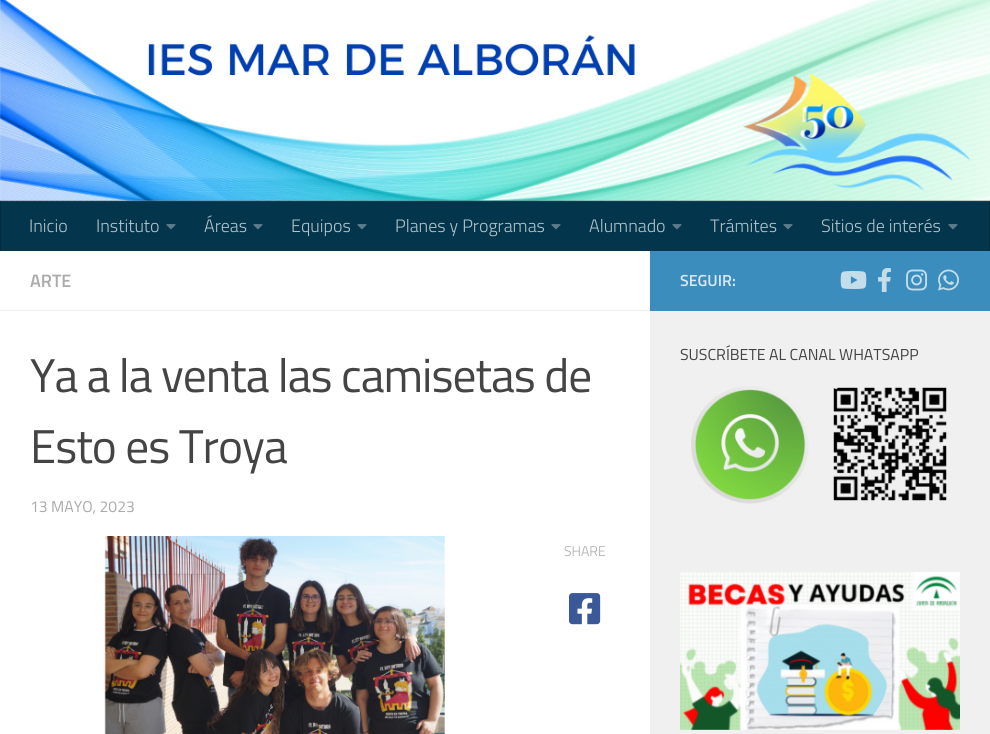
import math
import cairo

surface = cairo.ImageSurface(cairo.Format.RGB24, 990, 734)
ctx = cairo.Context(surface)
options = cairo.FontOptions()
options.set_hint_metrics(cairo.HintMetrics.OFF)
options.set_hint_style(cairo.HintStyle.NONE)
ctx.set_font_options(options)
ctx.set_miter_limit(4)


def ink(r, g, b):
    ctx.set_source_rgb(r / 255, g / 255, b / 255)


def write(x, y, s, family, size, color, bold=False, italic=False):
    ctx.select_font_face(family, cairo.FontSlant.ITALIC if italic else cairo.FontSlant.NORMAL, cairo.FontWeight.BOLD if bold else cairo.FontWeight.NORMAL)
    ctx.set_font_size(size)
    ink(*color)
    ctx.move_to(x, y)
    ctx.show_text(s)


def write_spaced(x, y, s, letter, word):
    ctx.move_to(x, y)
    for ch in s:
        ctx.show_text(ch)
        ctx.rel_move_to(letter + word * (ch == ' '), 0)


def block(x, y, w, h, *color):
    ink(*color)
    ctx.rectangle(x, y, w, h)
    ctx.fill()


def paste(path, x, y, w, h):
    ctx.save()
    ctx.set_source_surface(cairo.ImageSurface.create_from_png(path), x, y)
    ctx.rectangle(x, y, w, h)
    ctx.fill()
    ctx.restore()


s1 = dict(family="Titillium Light", size=18, color=(179, 195, 201))
s2 = dict(family="Titillium SemiBold", size=18, color=(170, 170, 170))
s3 = dict(family="Titillium", size=15.75, color=(170, 170, 170))
s4 = dict(family="Titillium Light", size=14, color=(170, 170, 170))
s5 = dict(family="Titillium SemiBold", size=16, color=(216, 232, 242))
s6 = dict(family="Titillium", size=15.9, color=(68, 68, 68))

ink(255, 255, 255)
ctx.paint()
paste("pic1.png", 0, 0, 990, 201)
ctx.set_source_rgba(0, 0, 0, 0.2)
ctx.rectangle(0, 200, 990, 1)
ctx.fill()
block(1, 201, 988, 50, 3, 54, 76)
block(989, 201, 1, 50, 2, 43, 61)
block(0, 201, 1, 50, 2, 43, 61)
ctx.set_source_rgba(1, 1, 1, 0.05)
ctx.rectangle(0, 201, 990, 1)
ctx.fill()
write(29, 232, "Inicio", **s1)
write(96, 232, "Instituto", **s1)
paste("pic2.png", 166, 224, 10, 6)
write(204, 232, "Áreas", **s1)
paste("pic2.png", 253, 224, 10, 6)
write(291, 232, "Equipos", **s1)
paste("pic2.png", 357, 224, 10, 6)
write(395, 232, "Planes y Programas", **s1)
paste("pic2.png", 551, 224, 10, 6)
write(589, 232, "Alumnado", **s1)
paste("pic2.png", 672, 224, 10, 6)
write(710, 232, "Trámites", **s1)
paste("pic2.png", 783, 224, 10, 6)
write(821, 232, "Sitios de interés", **s1)
paste("pic2.png", 948, 224, 10, 6)
block(0, 310, 650, 1, 238, 238, 238)
write(30, 287, "ARTE", **s2)
ctx.select_font_face("Titillium")
ctx.set_font_size(47.4)
ink(68, 68, 68)
write_spaced(30, 392, "Ya a la venta las camisetas de", -1, 0)
write_spaced(30, 463, "Esto es Troya", -1, 0)
write(30, 512, "13 MAYO, 2023", **s3)
paste("pic3.png", 104, 536, 341, 198)
write(564, 556, "SHARE", **s4)
paste("pic4.png", 569, 593, 32, 32)
block(650, 251, 340, 60, 59, 141, 189)
write(680, 286, "SEGUIR:", **s5)
paste("pic5.png", 840, 271, 27, 18)
paste("pic6.png", 878, 268, 13, 24)
paste("pic7.png", 906, 269, 22, 22)
paste("pic8.png", 938, 269, 21, 22)
block(650, 311, 340, 423, 240, 240, 240)
write(680, 360, "SUSCRÍBETE AL CANAL WHATSAPP", **s6)
paste("pic9.png", 691, 386, 256, 118)
paste("pic10.png", 680, 572, 280, 158)
surface.write_to_png("screenshot.png")
